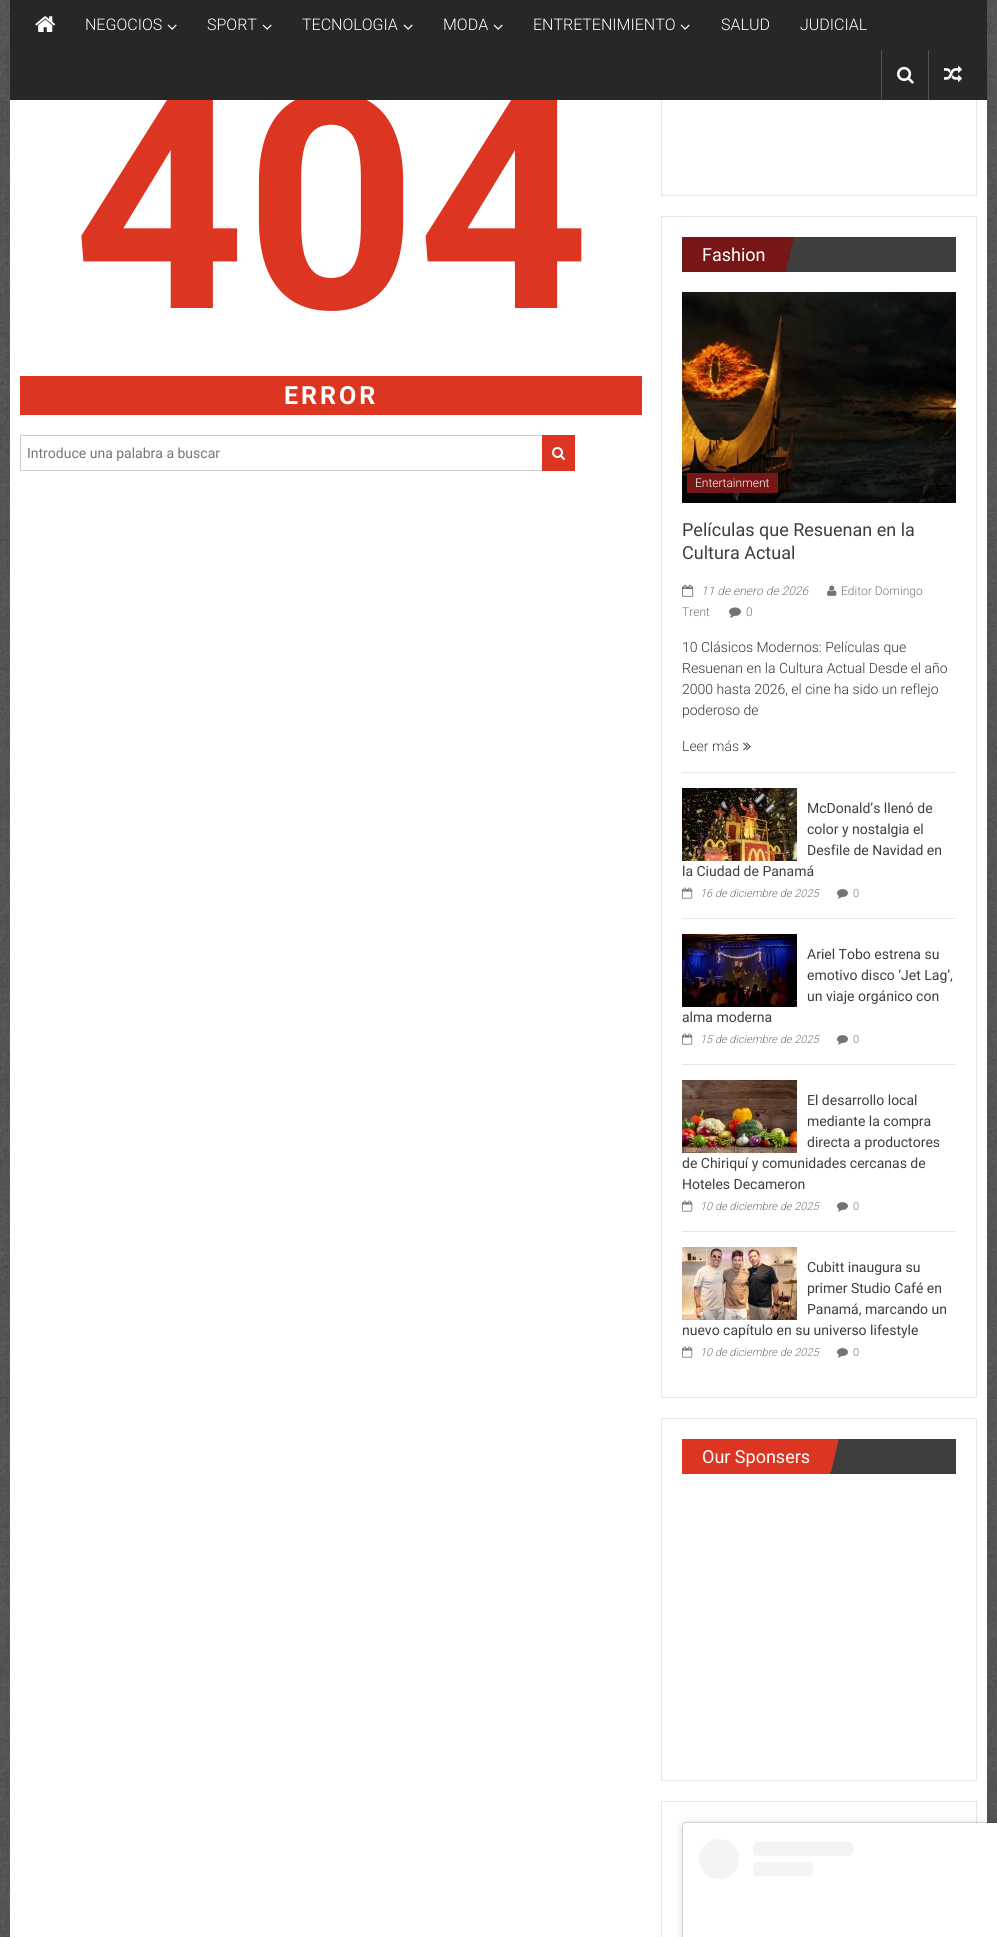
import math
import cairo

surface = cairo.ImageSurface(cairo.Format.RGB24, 997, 1937)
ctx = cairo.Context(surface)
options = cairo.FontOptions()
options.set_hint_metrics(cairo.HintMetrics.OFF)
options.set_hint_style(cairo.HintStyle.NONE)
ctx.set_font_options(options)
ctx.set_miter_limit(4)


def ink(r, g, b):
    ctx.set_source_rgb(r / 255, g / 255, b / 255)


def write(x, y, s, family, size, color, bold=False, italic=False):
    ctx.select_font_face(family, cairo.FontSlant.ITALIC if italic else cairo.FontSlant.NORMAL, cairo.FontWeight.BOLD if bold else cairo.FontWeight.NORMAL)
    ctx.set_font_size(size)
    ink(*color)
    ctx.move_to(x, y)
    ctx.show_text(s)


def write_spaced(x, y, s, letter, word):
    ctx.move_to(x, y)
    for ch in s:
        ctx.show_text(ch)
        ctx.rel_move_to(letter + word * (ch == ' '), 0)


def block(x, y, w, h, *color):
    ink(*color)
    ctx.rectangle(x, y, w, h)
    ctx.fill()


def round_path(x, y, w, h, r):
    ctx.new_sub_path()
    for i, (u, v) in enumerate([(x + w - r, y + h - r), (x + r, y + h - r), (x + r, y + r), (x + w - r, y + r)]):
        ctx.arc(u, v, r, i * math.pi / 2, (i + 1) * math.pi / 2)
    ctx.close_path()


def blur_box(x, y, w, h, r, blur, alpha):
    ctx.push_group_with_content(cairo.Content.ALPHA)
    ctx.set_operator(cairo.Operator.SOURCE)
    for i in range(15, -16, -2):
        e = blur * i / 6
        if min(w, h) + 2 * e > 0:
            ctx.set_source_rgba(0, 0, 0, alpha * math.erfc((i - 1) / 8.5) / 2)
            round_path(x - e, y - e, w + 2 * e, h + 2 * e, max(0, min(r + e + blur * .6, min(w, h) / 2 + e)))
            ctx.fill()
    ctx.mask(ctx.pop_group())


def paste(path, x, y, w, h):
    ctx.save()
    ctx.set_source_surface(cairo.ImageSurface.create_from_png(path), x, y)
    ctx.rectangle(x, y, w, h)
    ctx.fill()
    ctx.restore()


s1 = dict(family="Roboto", size=300, color=(220, 53, 34), bold=True)
s2 = dict(family="Roboto Light", size=16, color=(255, 255, 255))
s3 = dict(family="Roboto", size=14, color=(117, 117, 117))
s4 = dict(family="Roboto", size=18, color=(255, 255, 255))
s5 = dict(family="Roboto Light", size=12, color=(255, 255, 255))
s6 = dict(family="Roboto", size=18, color=(62, 62, 62))
s7 = dict(family="Roboto Light", size=12, color=(117, 117, 117))
s8 = dict(family="Roboto Light", size=12, color=(117, 117, 117), italic=True)
s9 = dict(family="Roboto Light", size=14, color=(51, 51, 51))
s10 = dict(family="Roboto Light", size=14, color=(62, 62, 62))
s11 = dict(family="Roboto", size=14, color=(62, 62, 62))
s12 = dict(family="Roboto Light", size=11, color=(117, 117, 117), italic=True)
s13 = dict(family="Roboto Light", size=11, color=(117, 117, 117))

ink(255, 255, 255)
ctx.paint()
paste("pic1.png", 0, 0, 997, 1937)
block(10, 100, 977, 1837, 255, 255, 255)
write(73, 308, "404", **s1)
ctx.rectangle(661.5, -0.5, 315, 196)
ink(230, 230, 230)
ctx.set_line_width(1)
ctx.stroke()
block(10, 0, 977, 100, 39, 39, 39)
paste("pic2.png", 35, 16, 21, 16)
write(85, 30, "NEGOCIOS", **s2)
paste("pic3.png", 167, 24, 10, 6)
write(207, 30, "SPORT", **s2)
paste("pic3.png", 262, 24, 10, 6)
write(302, 30, "TECNOLOGIA", **s2)
paste("pic3.png", 403, 24, 10, 6)
write(443, 30, "MODA", **s2)
paste("pic3.png", 493, 24, 10, 6)
write(533, 30, "ENTRETENIMIENTO", **s2)
paste("pic3.png", 680, 24, 10, 6)
write(721, 30, "SALUD", **s2)
write(800, 30, "JUDICIAL", **s2)
block(881, 50, 1, 50, 82, 82, 82)
paste("pic4.png", 897, 66, 17, 18)
block(928, 50, 1, 50, 82, 82, 82)
paste("pic5.png", 944, 65, 18, 17)
block(20, 376, 622, 39, 220, 53, 34)
ctx.select_font_face("Roboto", cairo.FontSlant.NORMAL, cairo.FontWeight.BOLD)
ctx.set_font_size(25)
ink(255, 255, 255)
write_spaced(284, 404, "ERROR", 3, 0)
ctx.rectangle(20.5, 435.5, 522, 35)
ink(204, 204, 204)
ctx.stroke()
write(27, 458, "Introduce una palabra a buscar", **s3)
block(542, 435, 33, 36, 220, 53, 34)
paste("pic6.png", 552, 447, 13, 13)
ctx.rectangle(661.5, 216.5, 315, 1181)
ink(230, 230, 230)
ctx.stroke()
block(786, 237, 170, 35, 62, 62, 62)
block(682, 237, 104, 35, 119, 22, 22)
ctx.save()
ctx.rectangle(682, 237, 274, 35)
ctx.clip()
ctx.new_path()
ctx.move_to(794, 237)
ctx.line_to(786, 271)
ctx.line_to(752, 263)
ctx.line_to(760, 229)
ctx.close_path()
ctx.fill()
ctx.restore()
write(702, 261, "Fashion", **s4)
block(682, 772, 274, 1, 230, 230, 230)
paste("pic7.png", 682, 292, 274, 211)
block(687, 473, 91, 20, 119, 22, 22)
write(695, 487, "Entertainment", **s5)
write(682, 536, "Películas que Resuenan en la", **s6)
write(682, 559, "Cultura Actual", **s6)
paste("pic8.png", 827, 585, 10, 11)
write(841, 595, "Editor Domingo", **s7)
write(682, 616, "Trent", **s7)
paste("pic9.png", 682, 584, 12, 13)
write(701, 595, "11 de enero de 2026", **s8)
paste("pic10.png", 729, 607, 12, 11)
write(746, 616, "0", **s7)
write(682, 652, "10 Clásicos Modernos: Películas que", **s9)
write(682, 673, "Resuenan en la Cultura Actual Desde el año", **s9)
write(682, 694, "2000 hasta 2026, el cine ha sido un reflejo", **s9)
write(682, 715, "poderoso de", **s9)
write(682, 751, "Leer más", **s10)
paste("pic11.png", 743, 742, 8, 9)
block(682, 918, 274, 1, 230, 230, 230)
paste("pic12.png", 682, 788, 115, 73)
write(807, 813, "McDonald’s llenó de", **s11)
write(807, 834, "color y nostalgia el", **s11)
write(807, 855, "Desfile de Navidad en", **s11)
write(682, 876, "la Ciudad de Panamá", **s11)
paste("pic13.png", 682, 887, 11, 12)
write(700, 897, "16 de diciembre de 2025", **s12)
paste("pic14.png", 837, 889, 11, 10)
write(853, 897, "0", **s13)
block(682, 1064, 274, 1, 230, 230, 230)
paste("pic15.png", 682, 934, 115, 73)
write(807, 959, "Ariel Tobo estrena su", **s11)
write(807, 980, "emotivo disco ‘Jet Lag’,", **s11)
write(807, 1001, "un viaje orgánico con", **s11)
write(682, 1022, "alma moderna", **s11)
paste("pic13.png", 682, 1033, 11, 12)
write(700, 1043, "15 de diciembre de 2025", **s12)
paste("pic14.png", 837, 1035, 11, 10)
write(853, 1043, "0", **s13)
block(682, 1231, 274, 1, 230, 230, 230)
paste("pic16.png", 682, 1080, 115, 73)
write(807, 1105, "El desarrollo local", **s11)
write(807, 1126, "mediante la compra", **s11)
write(807, 1147, "directa a productores", **s11)
write(682, 1168, "de Chiriquí y comunidades cercanas de", **s11)
write(682, 1189, "Hoteles Decameron", **s11)
paste("pic13.png", 682, 1200, 11, 12)
write(700, 1210, "10 de diciembre de 2025", **s12)
paste("pic14.png", 837, 1202, 11, 10)
write(853, 1210, "0", **s13)
paste("pic17.png", 682, 1247, 115, 73)
write(807, 1272, "Cubitt inaugura su", **s11)
write(807, 1293, "primer Studio Café en", **s11)
write(807, 1314, "Panamá, marcando un", **s11)
write(682, 1335, "nuevo capítulo en su universo lifestyle", **s11)
paste("pic13.png", 682, 1346, 11, 12)
write(700, 1356, "10 de diciembre de 2025", **s12)
paste("pic14.png", 837, 1348, 11, 10)
write(853, 1356, "0", **s13)
ctx.rectangle(661.5, 1418.5, 315, 362)
ink(230, 230, 230)
ctx.stroke()
block(830, 1439, 126, 35, 62, 62, 62)
block(682, 1439, 148, 35, 220, 53, 34)
ctx.save()
ctx.rectangle(682, 1439, 274, 35)
ctx.clip()
ctx.new_path()
ctx.move_to(839, 1438)
ctx.line_to(831, 1472)
ctx.line_to(797, 1464)
ctx.line_to(805, 1430)
ctx.close_path()
ctx.fill()
ctx.restore()
write(702, 1463, "Our Sponsers", **s4)
ctx.rectangle(661.5, 1801.5, 315, 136)
ink(230, 230, 230)
ctx.stroke()
ink(0, 0, 0)
blur_box(683, 1824, 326, 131, 3, 5, 0.15)
blur_box(683, 1823, 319, 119, 3, 0.5, 0.5)
ink(255, 255, 255)
round_path(683, 1823, 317, 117, 3)
ctx.fill()
ink(244, 244, 244)
ctx.arc(719, 1859, 20, 0, 2 * math.pi)
ctx.fill()
round_path(753, 1842, 100, 14, 4)
ctx.fill()
round_path(753, 1862, 60, 14, 4)
ctx.fill()
surface.write_to_png("screenshot.png")
